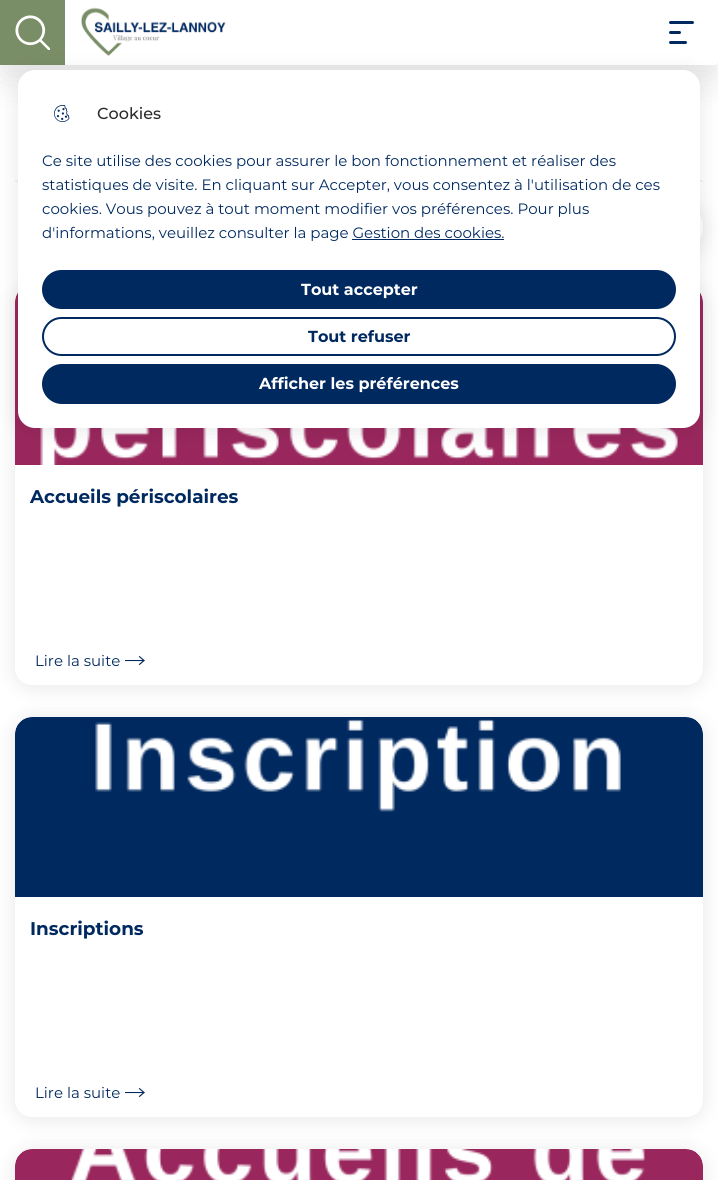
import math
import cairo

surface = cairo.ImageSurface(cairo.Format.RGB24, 718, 1180)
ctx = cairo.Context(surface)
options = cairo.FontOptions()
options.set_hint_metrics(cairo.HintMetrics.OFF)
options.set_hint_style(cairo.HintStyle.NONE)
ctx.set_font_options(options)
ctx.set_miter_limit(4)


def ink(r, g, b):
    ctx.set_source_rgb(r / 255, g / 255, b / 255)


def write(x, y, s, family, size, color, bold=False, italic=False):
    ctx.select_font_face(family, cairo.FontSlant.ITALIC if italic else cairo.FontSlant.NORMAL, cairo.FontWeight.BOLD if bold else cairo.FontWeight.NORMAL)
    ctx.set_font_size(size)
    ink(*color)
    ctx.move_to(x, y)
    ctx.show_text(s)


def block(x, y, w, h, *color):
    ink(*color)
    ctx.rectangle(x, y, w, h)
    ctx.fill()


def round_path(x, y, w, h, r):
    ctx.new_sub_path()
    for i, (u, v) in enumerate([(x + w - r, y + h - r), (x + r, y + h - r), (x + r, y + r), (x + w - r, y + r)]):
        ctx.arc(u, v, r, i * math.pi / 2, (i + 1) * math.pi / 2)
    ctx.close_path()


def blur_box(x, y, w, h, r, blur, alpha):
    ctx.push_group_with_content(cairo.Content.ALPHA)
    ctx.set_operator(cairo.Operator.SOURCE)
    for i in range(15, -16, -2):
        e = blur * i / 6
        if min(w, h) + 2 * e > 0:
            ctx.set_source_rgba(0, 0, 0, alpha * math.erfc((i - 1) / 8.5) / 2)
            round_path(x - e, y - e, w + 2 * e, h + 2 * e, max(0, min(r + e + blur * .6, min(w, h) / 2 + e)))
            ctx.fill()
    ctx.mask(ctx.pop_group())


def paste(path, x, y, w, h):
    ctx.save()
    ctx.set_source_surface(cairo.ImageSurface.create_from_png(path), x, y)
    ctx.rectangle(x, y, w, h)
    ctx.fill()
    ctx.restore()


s1 = dict(family="Montserrat Medium", size=16, color=(43, 43, 43))
s2 = dict(family="Montserrat", size=15, color=(0, 41, 96))
s3 = dict(family="Montserrat", size=16, color=(255, 255, 255), bold=True)
s4 = dict(family="Montserrat", size=16, color=(0, 41, 96), bold=True)
s5 = dict(family="Montserrat", size=18.4, color=(0, 41, 96), bold=True)

ink(255, 255, 255)
ctx.paint()
ink(0, 0, 0)
blur_box(0, 15, 718, 65, 4, 15, 0.1)
ink(255, 255, 255)
ctx.new_path()
ctx.move_to(0, 0)
ctx.line_to(718, 0)
ctx.line_to(718, 61)
ctx.curve_to(718, 63, 716, 65, 714, 65)
ctx.line_to(4, 65)
ctx.curve_to(2, 65, 0, 63, 0, 61)
ctx.close_path()
ctx.fill()
block(0, 0, 65, 65, 121, 141, 102)
paste("pic1.png", 15, 15, 35, 35)
paste("pic3.png", 81, 7, 145, 49)
ink(0, 41, 96)
round_path(669, 41, 18, 3, 1.5)
ctx.fill()
block(15, 180, 688, 2, 239, 243, 248)
ink(0, 0, 0)
blur_box(653, 204, 50, 50, 25, 10, 0.1)
ink(255, 255, 255)
ctx.arc(678, 227, 25, 0, 2 * math.pi)
ctx.fill()
ink(0, 0, 0)
blur_box(15, 287, 688, 400, 17, 10, 0.1)
ink(255, 255, 255)
round_path(15, 285, 688, 400, 17)
ctx.fill()
paste("pic4.png", 15, 292, 688, 173)
ink(0, 0, 0)
blur_box(18, 72, 682, 358, 17, 10, 0.1)
ink(255, 255, 255)
round_path(18, 70, 682, 358, 17)
ctx.fill()
paste("pic2.png", 54, 105, 16, 17)
write(97, 119, "Cookies", **s1)
write(42, 166, "Ce site utilise des cookies pour assurer le bon fonctionnement et réaliser des", **s2)
write(42, 190, "statistiques de visite. En cliquant sur Accepter, vous consentez à l'utilisation de ces", **s2)
write(42, 214, "cookies. Vous pouvez à tout moment modifier vos préférences. Pour plus", **s2)
write(42, 238, "d'informations, veuillez consulter la page Gestion des cookies.", **s2)
block(352, 239, 152, 1, 0, 41, 96)
round_path(43, 271, 632, 37, 18.5)
ctx.fill_preserve()
ctx.stroke()
write(301, 295, "Tout accepter", **s3)
round_path(43, 318, 632, 37, 18.5)
ink(0, 41, 96)
ctx.stroke()
write(308, 342, "Tout refuser", **s4)
round_path(43, 365, 632, 38, 19)
ctx.fill_preserve()
ctx.stroke()
write(259, 389, "Afficher les préférences", **s3)
ink(0, 41, 96)
round_path(669, 31, 12, 3, 1.5)
ctx.fill()
round_path(669, 21, 25, 3, 1.5)
ctx.fill()
write(30, 503, "Accueils périscolaires", **s5)
write(35, 666, "Lire la suite", **s2)
paste("pic5.png", 125, 656, 20, 9)
ink(0, 0, 0)
blur_box(15, 719, 688, 400, 17, 10, 0.1)
ink(255, 255, 255)
round_path(15, 717, 688, 400, 17)
ctx.fill()
paste("pic6.png", 15, 717, 688, 180)
write(30, 935, "Inscriptions", **s5)
write(35, 1098, "Lire la suite", **s2)
paste("pic5.png", 125, 1088, 20, 9)
ink(0, 0, 0)
blur_box(15, 1151, 688, 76, 17, 10, 0.1)
ink(255, 255, 255)
round_path(15, 1149, 688, 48, 17)
ctx.fill()
paste("pic7.png", 15, 1149, 688, 31)
surface.write_to_png("screenshot.png")
